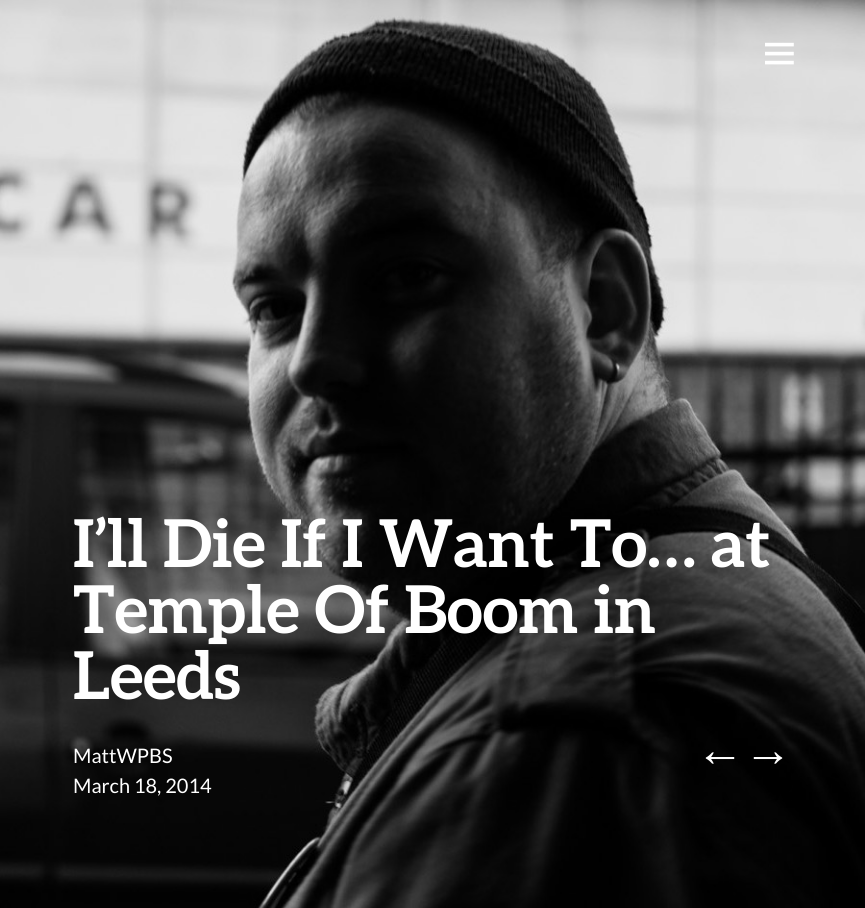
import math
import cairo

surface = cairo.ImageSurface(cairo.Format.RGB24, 865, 908)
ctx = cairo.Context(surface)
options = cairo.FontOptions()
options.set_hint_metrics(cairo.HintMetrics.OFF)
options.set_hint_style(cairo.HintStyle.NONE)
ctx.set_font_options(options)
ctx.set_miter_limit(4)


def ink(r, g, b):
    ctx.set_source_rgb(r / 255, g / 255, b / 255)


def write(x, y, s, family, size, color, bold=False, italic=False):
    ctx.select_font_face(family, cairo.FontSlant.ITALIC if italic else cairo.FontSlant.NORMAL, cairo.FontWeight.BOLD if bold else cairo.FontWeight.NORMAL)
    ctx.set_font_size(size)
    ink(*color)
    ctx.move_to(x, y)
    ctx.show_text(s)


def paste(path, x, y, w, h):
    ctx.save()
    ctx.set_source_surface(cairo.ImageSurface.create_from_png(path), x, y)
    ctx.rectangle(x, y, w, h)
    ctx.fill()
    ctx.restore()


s1 = dict(family="Aleo", size=66, color=(255, 255, 255), bold=True)
s2 = dict(family="Lato", size=20, color=(255, 255, 255))
s3 = dict(family="Liberation Sans", size=48, color=(255, 255, 255), bold=True)

ink(255, 255, 255)
ctx.paint()
paste("pic2.png", 0, 0, 865, 908)
paste("pic1.png", 765, 42, 29, 23)
write(73, 567, "I’ll Die If I Want To… at", **s1)
write(73, 633, "Temple Of Boom in", **s1)
write(73, 699, "Leeds", **s1)
write(73, 763, "MattWPBS", **s2)
write(73, 793, "March 18, 2014", **s2)
write(696, 766, "←→", **s3)
surface.write_to_png("screenshot.png")
